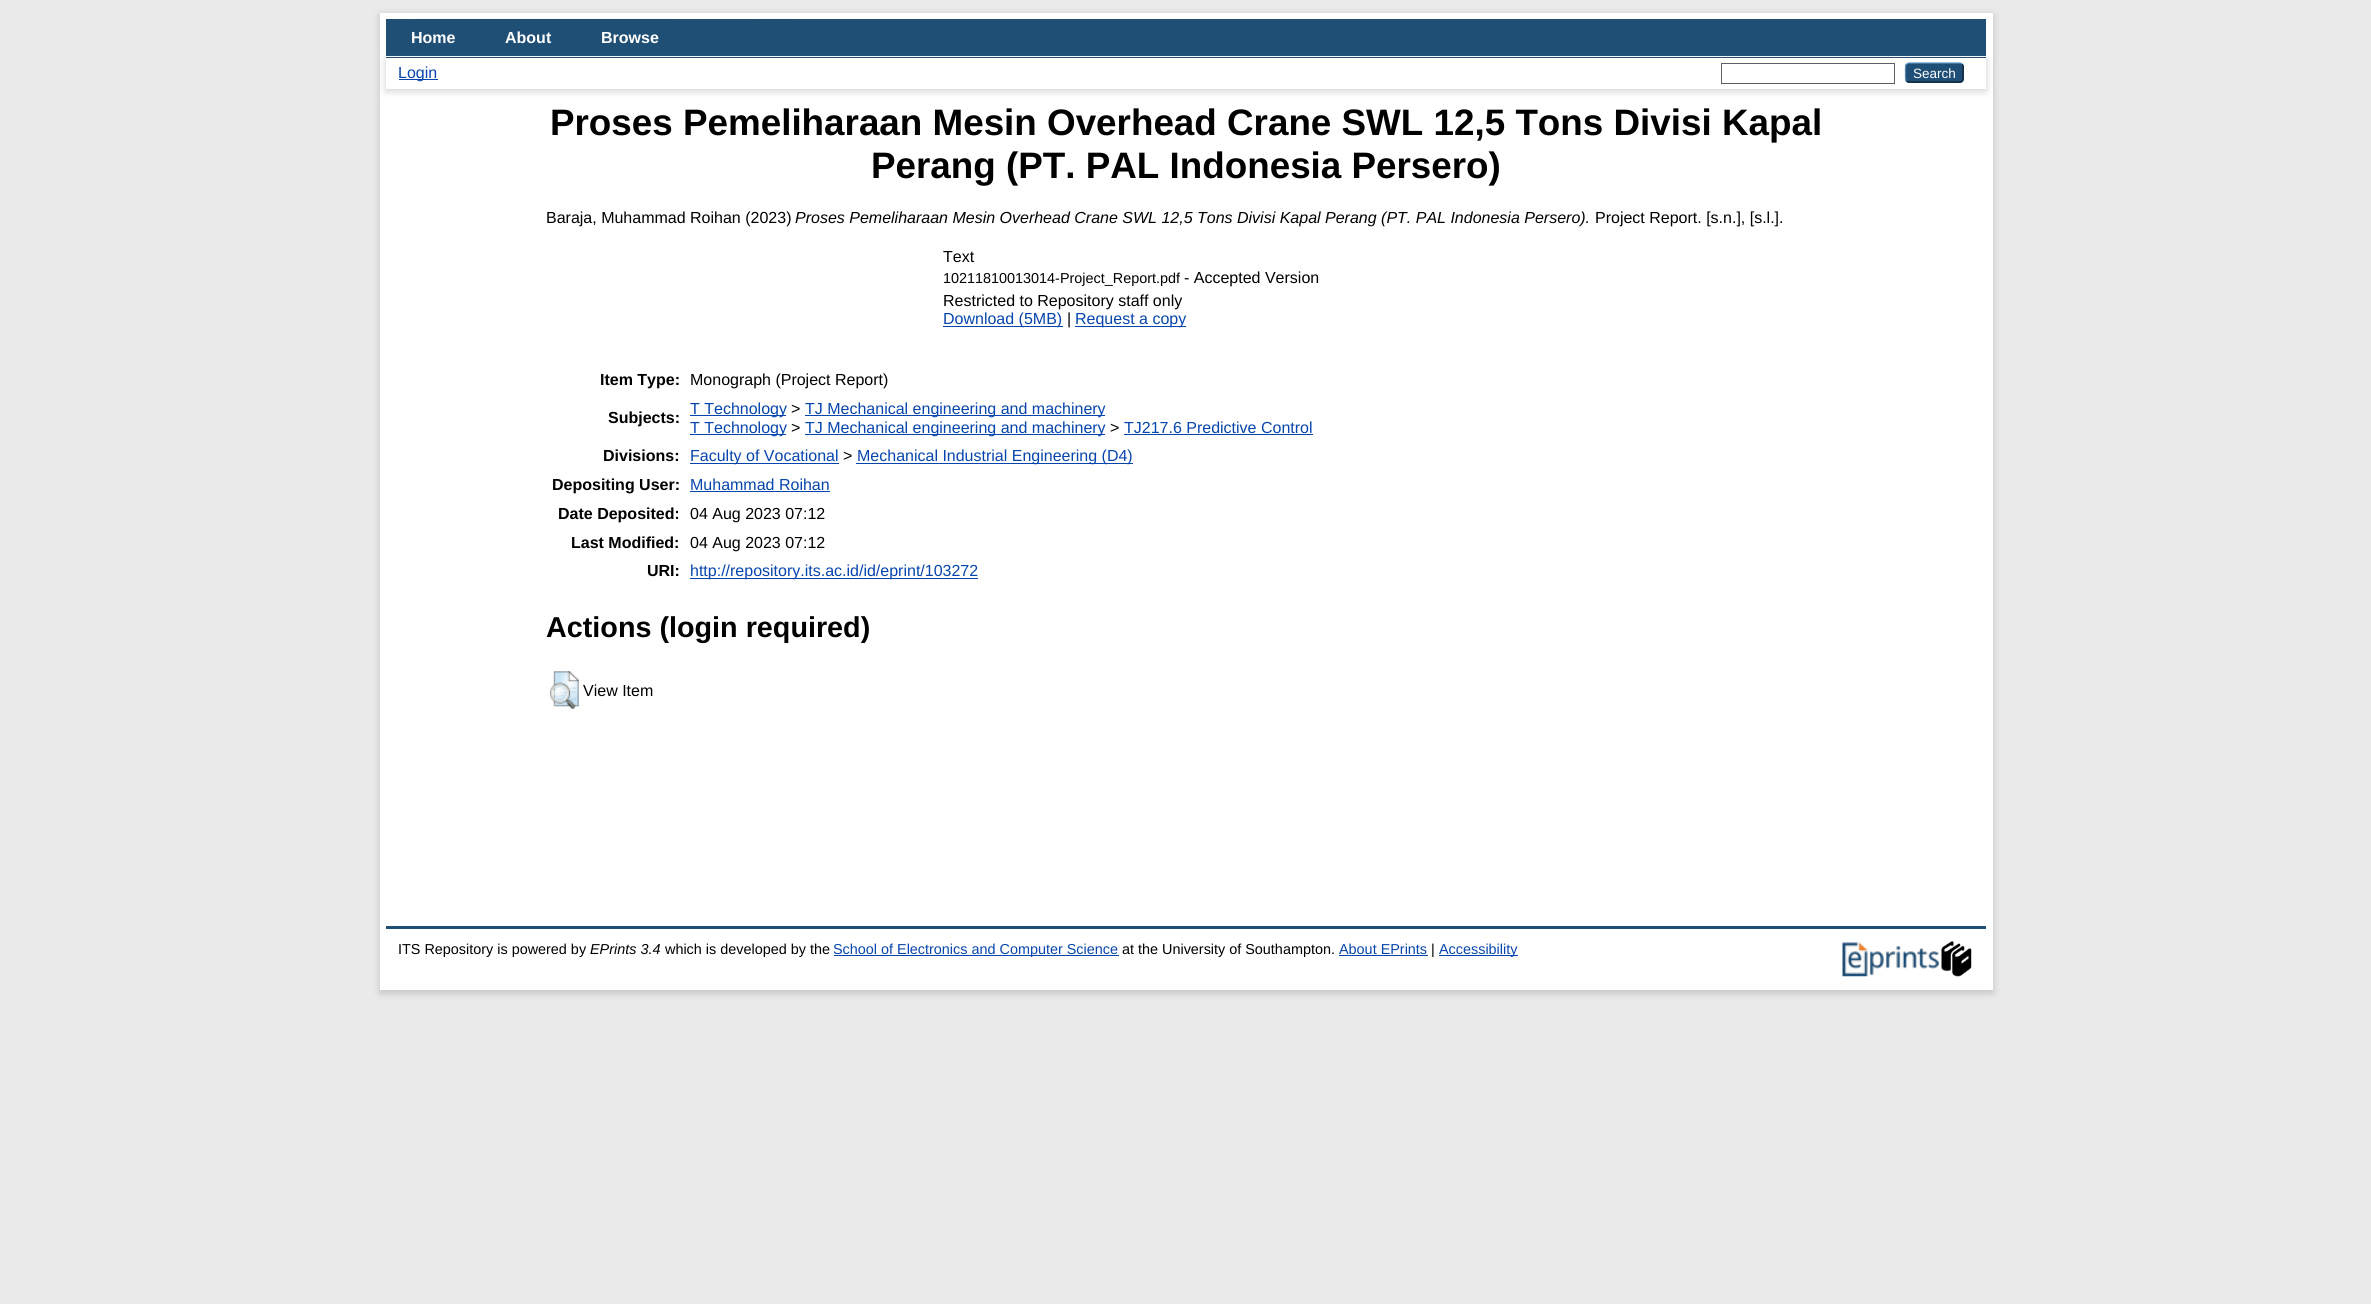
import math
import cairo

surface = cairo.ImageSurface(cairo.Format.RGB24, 2371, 1304)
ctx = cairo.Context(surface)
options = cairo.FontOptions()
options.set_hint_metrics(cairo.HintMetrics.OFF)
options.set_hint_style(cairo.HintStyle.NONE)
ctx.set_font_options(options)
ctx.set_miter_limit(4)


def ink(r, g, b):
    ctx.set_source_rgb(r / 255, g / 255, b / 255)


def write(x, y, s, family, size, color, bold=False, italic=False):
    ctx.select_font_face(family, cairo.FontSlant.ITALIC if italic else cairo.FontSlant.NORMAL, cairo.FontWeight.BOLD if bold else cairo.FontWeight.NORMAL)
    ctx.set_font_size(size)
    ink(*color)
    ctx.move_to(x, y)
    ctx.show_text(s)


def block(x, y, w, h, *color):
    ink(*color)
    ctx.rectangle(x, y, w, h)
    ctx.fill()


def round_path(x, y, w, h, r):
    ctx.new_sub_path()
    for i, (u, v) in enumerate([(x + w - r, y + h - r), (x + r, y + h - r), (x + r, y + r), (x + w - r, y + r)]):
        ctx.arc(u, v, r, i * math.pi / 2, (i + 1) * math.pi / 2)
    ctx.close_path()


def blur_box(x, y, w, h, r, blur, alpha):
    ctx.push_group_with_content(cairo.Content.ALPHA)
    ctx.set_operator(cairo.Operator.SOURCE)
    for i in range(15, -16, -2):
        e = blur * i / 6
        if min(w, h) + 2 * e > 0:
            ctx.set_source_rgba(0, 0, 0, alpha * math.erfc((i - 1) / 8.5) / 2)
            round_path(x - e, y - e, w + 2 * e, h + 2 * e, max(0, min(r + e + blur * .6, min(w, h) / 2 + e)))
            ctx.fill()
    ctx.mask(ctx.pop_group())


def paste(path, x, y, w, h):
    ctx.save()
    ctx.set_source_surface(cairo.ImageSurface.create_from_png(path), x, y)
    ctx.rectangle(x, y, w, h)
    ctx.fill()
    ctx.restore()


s1 = dict(family="Liberation Sans", size=16, color=(255, 255, 255), bold=True)
s2 = dict(family="Liberation Sans", size=16, color=(6, 69, 173))
s3 = dict(family="Liberation Sans", size=13.5, color=(255, 255, 255))
s4 = dict(family="Liberation Sans", size=36.8, color=(0, 0, 0), bold=True)
s5 = dict(family="Liberation Sans", size=16, color=(0, 0, 0))
s6 = dict(family="Liberation Sans", size=16, color=(0, 0, 0), italic=True)
s7 = dict(family="Liberation Sans", size=14.4, color=(0, 0, 0))
s8 = dict(family="Liberation Sans", size=16, color=(0, 0, 0), bold=True)
s9 = dict(family="Liberation Sans", size=28.75, color=(0, 0, 0), bold=True)
s10 = dict(family="Liberation Sans", size=14.4, color=(0, 0, 0), italic=True)
s11 = dict(family="Liberation Sans", size=14.4, color=(6, 69, 173))

ink(234, 234, 234)
ctx.paint()
ink(100, 100, 100)
blur_box(380, 15, 1613, 978, 0, 4, 0.3)
block(380, 13, 1613, 977, 255, 255, 255)
paste("pic1.png", 413, 18, 380, 1)
block(386, 19, 1600, 39, 32, 79, 118)
block(386, 56, 1600, 1, 255, 255, 255)
write(411, 43, "Home", **s1)
write(505, 43, "About", **s1)
write(601, 43, "Browse", **s1)
ink(100, 100, 100)
blur_box(386, 60, 1600, 31, 0, 4, 0.3)
block(386, 58, 1600, 31, 255, 255, 255)
block(399, 79, 39, 1, 6, 69, 173)
write(398, 78, "Login", **s2)
ctx.rectangle(1721.5, 63.5, 173, 20)
ink(96, 96, 96)
ctx.set_line_width(1)
ctx.stroke()
ink(31, 79, 118)
round_path(1905, 63, 59, 20, 4)
ctx.fill()
ctx.new_path()
ctx.move_to(1906.5, 64)
ctx.line_to(1908.5, 63)
ctx.line_to(1960.5, 63)
ctx.line_to(1962, 64)
ink(91, 151, 199)
ctx.set_line_width(1.2)
ctx.stroke()
ctx.new_path()
ctx.move_to(1962, 64)
ctx.curve_to(1964, 66, 1963, 70, 1963, 72.5)
ctx.curve_to(1963, 83.5, 1963.5, 82, 1951.5, 82)
ctx.line_to(1917.5, 82)
ctx.curve_to(1917, 82, 1909, 83, 1906.5, 81)
ink(13, 33, 49)
ctx.stroke()
ctx.new_path()
ctx.move_to(1906.5, 81)
ctx.curve_to(1905, 79, 1905.5, 74.5, 1905.5, 72.5)
ctx.curve_to(1905.5, 70.5, 1905, 66, 1906.5, 64)
ink(82, 135, 179)
ctx.stroke()
write(1913, 78, "Search", **s3)
write(550, 135, "Proses Pemeliharaan Mesin Overhead Crane SWL 12,5 Tons Divisi Kapal", **s4)
write(871, 178, "Perang (PT. PAL Indonesia Persero)", **s4)
write(546, 223, "Baraja, Muhammad Roihan (2023)", **s5)
write(795, 223, "Proses Pemeliharaan Mesin Overhead Crane SWL 12,5 Tons Divisi Kapal Perang (PT. PAL Indonesia Persero).", **s6)
write(1595, 223, "Project Report. [s.n.], [s.l.].", **s5)
write(943, 262, "Text", **s5)
write(943, 283, "10211810013014-Project_Report.pdf", **s7)
write(1184, 283, "- Accepted Version", **s5)
write(943, 306, "Restricted to Repository staff only", **s5)
block(943, 326, 120, 1, 6, 69, 173)
write(943, 324, "Download (5MB)", **s2)
write(1067, 324, "|", **s5)
block(1075, 326, 111, 1, 6, 69, 173)
write(1075, 324, "Request a copy", **s2)
write(600, 385, "Item Type:", **s8)
write(690, 385, "Monograph (Project Report)", **s5)
write(608, 423, "Subjects:", **s8)
block(690, 415, 96, 1, 6, 69, 173)
write(690, 414, "T Technology", **s2)
write(791, 414, ">", **s5)
block(805, 415, 300, 1, 6, 69, 173)
write(805, 414, "TJ Mechanical engineering and machinery", **s2)
block(690, 434, 96, 1, 6, 69, 173)
write(690, 433, "T Technology", **s2)
write(791, 433, ">", **s5)
block(805, 434, 300, 1, 6, 69, 173)
write(805, 433, "TJ Mechanical engineering and machinery", **s2)
write(1110, 433, ">", **s5)
write(1124, 433, "TJ217.6 Predictive Control", **s2)
block(1124, 434, 189, 1, 6, 69, 173)
write(603, 461, "Divisions:", **s8)
block(690, 463, 149, 1, 6, 69, 173)
write(690, 461, "Faculty of Vocational", **s2)
write(843, 461, ">", **s5)
block(856, 463, 277, 1, 6, 69, 173)
write(857, 461, "Mechanical Industrial Engineering (D4)", **s2)
write(552, 490, "Depositing User:", **s8)
write(690, 490, "Muhammad Roihan", **s2)
block(690, 491, 140, 1, 6, 69, 173)
write(558, 519, "Date Deposited:", **s8)
write(690, 519, "04 Aug 2023 07:12", **s5)
write(571, 548, "Last Modified:", **s8)
write(690, 548, "04 Aug 2023 07:12", **s5)
write(647, 576, "URI:", **s8)
block(690, 578, 288, 1, 6, 69, 173)
write(690, 576, "http://repository.its.ac.id/id/eprint/103272", **s2)
write(546, 637, "Actions (login required)", **s9)
paste("pic2.png", 550, 671, 29, 38)
write(583, 696, "View Item", **s5)
block(386, 926, 1600, 3, 32, 79, 118)
write(398, 954, "ITS Repository is powered by", **s7)
write(590, 954, "EPrints 3.4", **s10)
write(665, 954, "which is developed by the", **s7)
block(834, 955, 285, 1, 6, 69, 173)
write(833, 954, "School of Electronics and Computer Science", **s11)
write(1122, 954, "at the University of Southampton.", **s7)
write(1339, 954, "About EPrints", **s11)
block(1339, 955, 89, 1, 6, 69, 173)
write(1431, 954, "|", **s7)
block(1439, 955, 79, 1, 6, 69, 173)
write(1439, 954, "Accessibility", **s11)
paste("pic3.png", 1842, 942, 97, 35)
paste("pic4.png", 1941, 941, 31, 36)
surface.write_to_png("screenshot.png")
